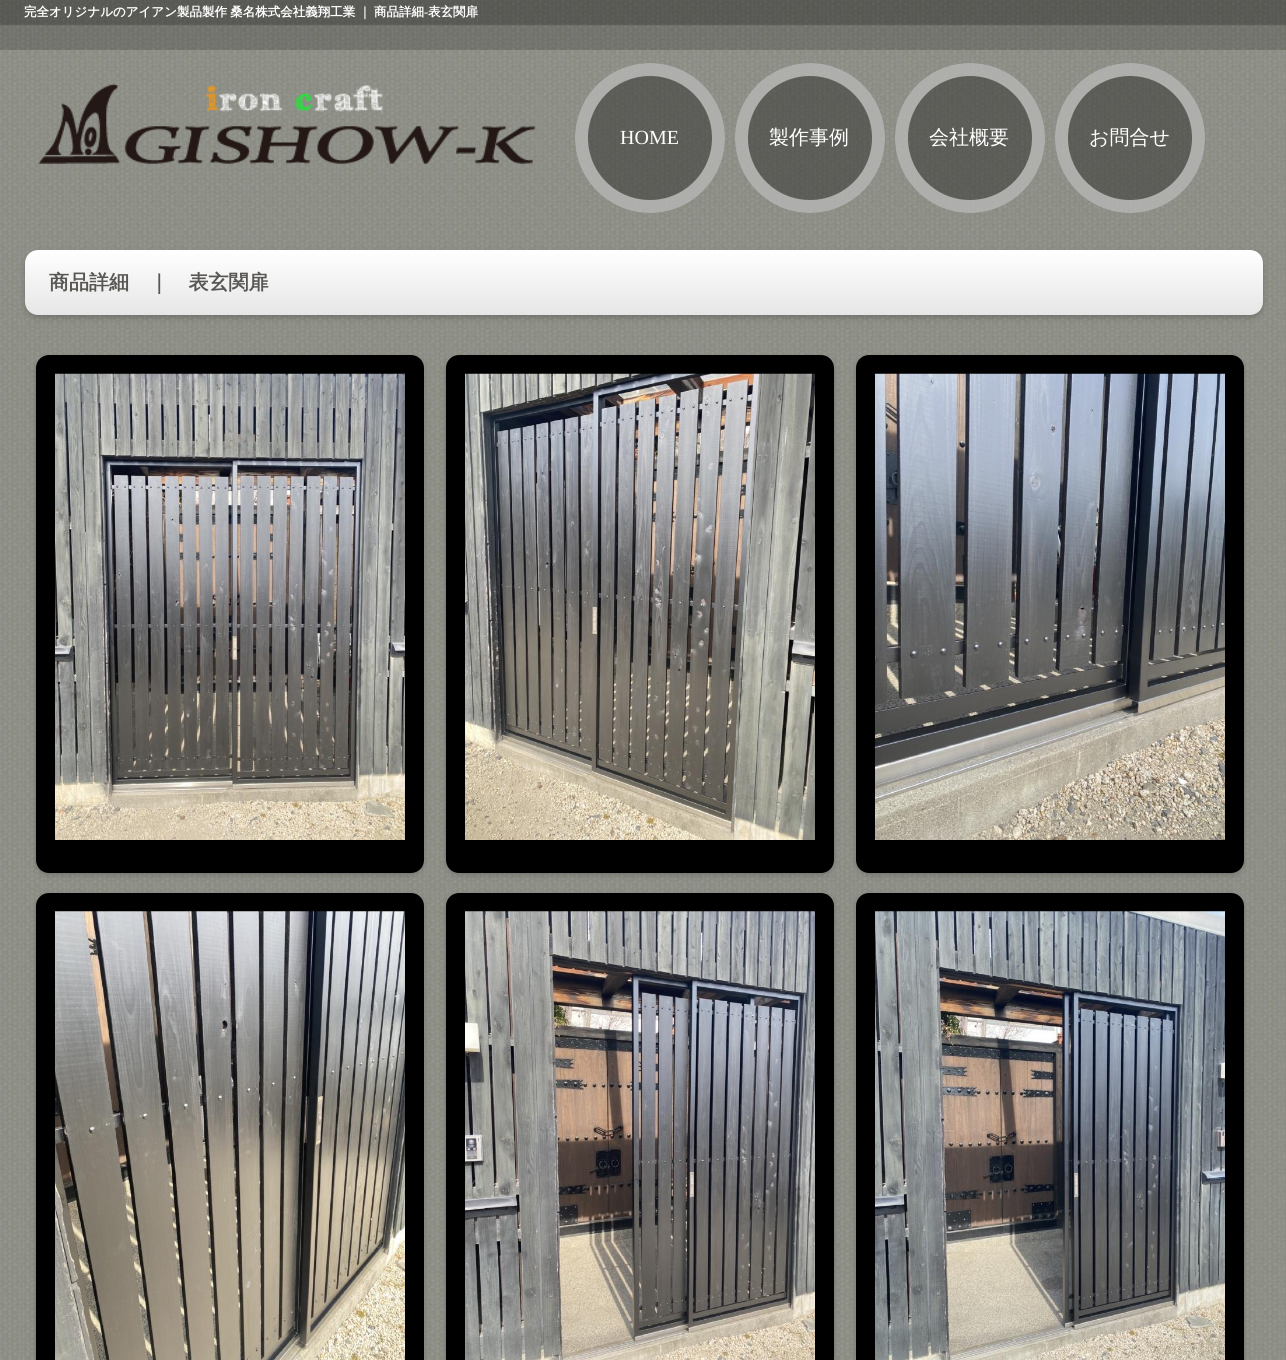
import math
import cairo

surface = cairo.ImageSurface(cairo.Format.RGB24, 1286, 1360)
ctx = cairo.Context(surface)
options = cairo.FontOptions()
options.set_hint_metrics(cairo.HintMetrics.OFF)
options.set_hint_style(cairo.HintStyle.NONE)
ctx.set_font_options(options)
ctx.set_miter_limit(4)


def ink(r, g, b):
    ctx.set_source_rgb(r / 255, g / 255, b / 255)


def write(x, y, s, family, size, color, bold=False, italic=False):
    ctx.select_font_face(family, cairo.FontSlant.ITALIC if italic else cairo.FontSlant.NORMAL, cairo.FontWeight.BOLD if bold else cairo.FontWeight.NORMAL)
    ctx.set_font_size(size)
    ink(*color)
    ctx.move_to(x, y)
    ctx.show_text(s)


def write_spaced(x, y, s, letter, word):
    ctx.move_to(x, y)
    for ch in s:
        ctx.show_text(ch)
        ctx.rel_move_to(letter + word * (ch == ' '), 0)


def round_path(x, y, w, h, r):
    ctx.new_sub_path()
    for i, (u, v) in enumerate([(x + w - r, y + h - r), (x + r, y + h - r), (x + r, y + r), (x + w - r, y + r)]):
        ctx.arc(u, v, r, i * math.pi / 2, (i + 1) * math.pi / 2)
    ctx.close_path()


def blur_box(x, y, w, h, r, blur, alpha):
    ctx.push_group_with_content(cairo.Content.ALPHA)
    ctx.set_operator(cairo.Operator.SOURCE)
    for i in range(15, -16, -2):
        e = blur * i / 6
        if min(w, h) + 2 * e > 0:
            ctx.set_source_rgba(0, 0, 0, alpha * math.erfc((i - 1) / 8.5) / 2)
            round_path(x - e, y - e, w + 2 * e, h + 2 * e, max(0, min(r + e + blur * .6, min(w, h) / 2 + e)))
            ctx.fill()
    ctx.mask(ctx.pop_group())


def paste(path, x, y, w, h):
    ctx.save()
    ctx.set_source_surface(cairo.ImageSurface.create_from_png(path), x, y)
    ctx.rectangle(x, y, w, h)
    ctx.fill()
    ctx.restore()


s1 = dict(family="Liberation Serif", size=12.5, color=(255, 255, 255), bold=True)
s2 = dict(family="WenQuanYi Zen Hei", size=12.5, color=(255, 255, 255), bold=True)
s3 = dict(family="Liberation Serif", size=20, color=(255, 255, 255))
s4 = dict(family="WenQuanYi Zen Hei Medium", size=20, color=(255, 255, 255))
s5 = dict(family="WenQuanYi Zen Hei", size=20, color=(88, 87, 83), bold=True)

ink(255, 255, 255)
ctx.paint()
paste("pic1.png", 0, 0, 1286, 1360)
ctx.select_font_face("WenQuanYi Zen Hei", cairo.FontSlant.NORMAL, cairo.FontWeight.BOLD)
ctx.set_font_size(12.5)
ink(255, 255, 255)
write_spaced(24, 16, "完全オリジナルのアイアン製品製作 桑名株式会社義翔工業 ｜ 商品詳細", 0, -0.5)
write(424, 16, "-", **s1)
write(428, 16, "表玄関扉", **s2)
paste("pic2.png", 38, 83, 498, 81)
ctx.set_source_rgba(0.176, 0.176, 0.165, 0.5)
ctx.arc(650, 138, 75, 0, 2 * math.pi)
ctx.fill()
ctx.arc(650, 138, 68.5, 0, 2 * math.pi)
ctx.set_source_rgba(1, 1, 1, 0.5)
ctx.set_line_width(13)
ctx.stroke()
write(620, 144, "HOME", **s3)
ctx.set_source_rgba(0.176, 0.176, 0.165, 0.5)
ctx.new_path()
ctx.arc(810, 138, 75, 0, 2 * math.pi)
ctx.fill()
ctx.arc(810, 138, 68.5, 0, 2 * math.pi)
ctx.set_source_rgba(1, 1, 1, 0.5)
ctx.stroke()
write(769, 144, "製作事例", **s4)
ctx.set_source_rgba(0.176, 0.176, 0.165, 0.5)
ctx.new_path()
ctx.arc(970, 138, 75, 0, 2 * math.pi)
ctx.fill()
ctx.arc(970, 138, 68.5, 0, 2 * math.pi)
ctx.set_source_rgba(1, 1, 1, 0.5)
ctx.stroke()
write(929, 144, "会社概要", **s4)
ctx.set_source_rgba(0.176, 0.176, 0.165, 0.5)
ctx.new_path()
ctx.arc(1130, 138, 75, 0, 2 * math.pi)
ctx.fill()
ctx.arc(1130, 138, 68.5, 0, 2 * math.pi)
ctx.set_source_rgba(1, 1, 1, 0.5)
ctx.stroke()
write(1089, 144, "お問合せ", **s4)
ink(0, 0, 0)
blur_box(25, 253, 1238, 65, 13, 3, 0.2)
gradient = cairo.LinearGradient(644, 250, 644, 315)
gradient.add_color_stop_rgba(0, 1, 1, 1, 1)
gradient.add_color_stop_rgba(1, 0.902, 0.902, 0.902, 1)
ctx.set_source(gradient)
round_path(25, 250, 1238, 65, 13)
ctx.fill()
write(49, 289, "商品詳細　｜　表玄関扉", **s5)
ink(0, 0, 0)
blur_box(36, 358, 388, 517, 13, 3, 0.2)
ink(0, 0, 0)
round_path(36, 355, 388, 518, 13)
ctx.fill()
paste("pic3.png", 55, 373, 350, 467)
ink(0, 0, 0)
blur_box(446, 358, 388, 517, 13, 3, 0.2)
ink(0, 0, 0)
round_path(446, 355, 388, 518, 13)
ctx.fill()
paste("pic4.png", 465, 373, 350, 467)
ink(0, 0, 0)
blur_box(856, 358, 388, 517, 13, 3, 0.2)
ink(0, 0, 0)
round_path(856, 355, 388, 518, 13)
ctx.fill()
paste("pic5.png", 875, 373, 350, 467)
ink(0, 0, 0)
blur_box(36, 895, 388, 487, 13, 3, 0.2)
ink(0, 0, 0)
round_path(36, 893, 388, 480, 13)
ctx.fill()
paste("pic6.png", 55, 911, 350, 449)
ink(0, 0, 0)
blur_box(446, 895, 388, 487, 13, 3, 0.2)
ink(0, 0, 0)
round_path(446, 893, 388, 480, 13)
ctx.fill()
paste("pic7.png", 465, 911, 350, 449)
ink(0, 0, 0)
blur_box(856, 895, 388, 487, 13, 3, 0.2)
ink(0, 0, 0)
round_path(856, 893, 388, 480, 13)
ctx.fill()
paste("pic8.png", 875, 911, 350, 449)
surface.write_to_png("screenshot.png")
